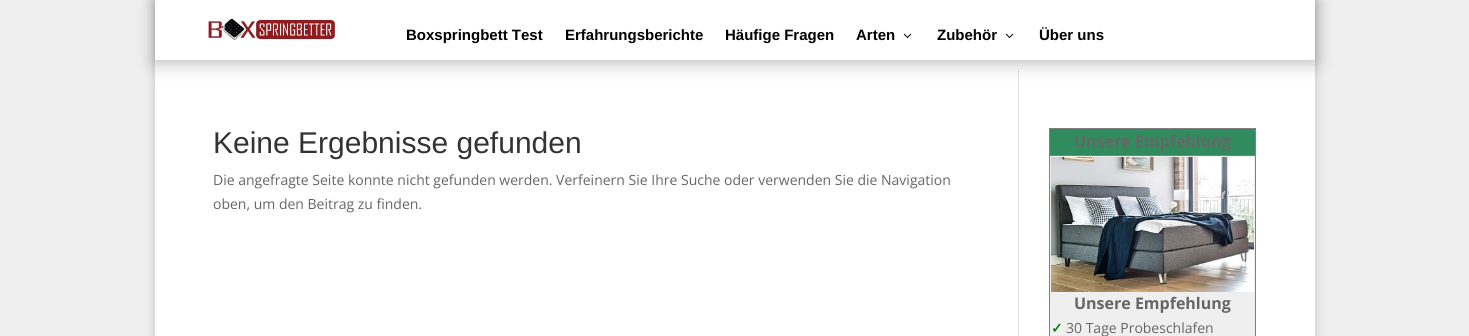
import math
import cairo

surface = cairo.ImageSurface(cairo.Format.RGB24, 1469, 336)
ctx = cairo.Context(surface)
options = cairo.FontOptions()
options.set_hint_metrics(cairo.HintMetrics.OFF)
options.set_hint_style(cairo.HintStyle.NONE)
ctx.set_font_options(options)
ctx.set_miter_limit(4)


def ink(r, g, b):
    ctx.set_source_rgb(r / 255, g / 255, b / 255)


def write(x, y, s, family, size, color, bold=False, italic=False):
    ctx.select_font_face(family, cairo.FontSlant.ITALIC if italic else cairo.FontSlant.NORMAL, cairo.FontWeight.BOLD if bold else cairo.FontWeight.NORMAL)
    ctx.set_font_size(size)
    ink(*color)
    ctx.move_to(x, y)
    ctx.show_text(s)


def block(x, y, w, h, *color):
    ink(*color)
    ctx.rectangle(x, y, w, h)
    ctx.fill()


def round_path(x, y, w, h, r):
    ctx.new_sub_path()
    for i, (u, v) in enumerate([(x + w - r, y + h - r), (x + r, y + h - r), (x + r, y + r), (x + w - r, y + r)]):
        ctx.arc(u, v, r, i * math.pi / 2, (i + 1) * math.pi / 2)
    ctx.close_path()


def blur_box(x, y, w, h, r, blur, alpha):
    ctx.push_group_with_content(cairo.Content.ALPHA)
    ctx.set_operator(cairo.Operator.SOURCE)
    for i in range(15, -16, -2):
        e = blur * i / 6
        if min(w, h) + 2 * e > 0:
            ctx.set_source_rgba(0, 0, 0, alpha * math.erfc((i - 1) / 8.5) / 2)
            round_path(x - e, y - e, w + 2 * e, h + 2 * e, max(0, min(r + e + blur * .6, min(w, h) / 2 + e)))
            ctx.fill()
    ctx.mask(ctx.pop_group())


def paste(path, x, y, w, h):
    ctx.save()
    ctx.set_source_surface(cairo.ImageSurface.create_from_png(path), x, y)
    ctx.rectangle(x, y, w, h)
    ctx.fill()
    ctx.restore()


s1 = dict(family="Liberation Sans", size=15, color=(0, 0, 0), bold=True)
s2 = dict(family="Liberation Sans", size=30, color=(51, 51, 51))
s3 = dict(family="Open Sans", size=14, color=(102, 102, 102))
s4 = dict(family="Open Sans", size=16, color=(102, 102, 102), bold=True)
s5 = dict(family="DejaVu Sans", size=14, color=(0, 128, 0), bold=True)

ink(239, 239, 239)
ctx.paint()
ink(0, 0, 0)
blur_box(155, 0, 1160, 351, 0, 5, 0.2)
block(155, 60, 1160, 276, 255, 255, 255)
block(1018, 70, 1, 266, 226, 226, 226)
ink(0, 0, 0)
blur_box(155, 2, 1160, 60, 0, 9, 0.3)
block(155, 0, 1160, 60, 255, 255, 255)
paste("pic1.png", 208, 18, 128, 22)
write(406, 40, "Boxspringbett Test", **s1)
write(565, 40, "Erfahrungsberichte", **s1)
write(725, 40, "Häufige Fragen", **s1)
write(856, 40, "Arten", **s1)
paste("pic2.png", 903, 33, 9, 5)
write(937, 40, "Zubehör", **s1)
paste("pic2.png", 1005, 33, 9, 5)
write(1039, 40, "Über uns", **s1)
write(213, 153, "Keine Ergebnisse gefunden", **s2)
write(213, 185, "Die angefragte Seite konnte nicht gefunden werden. Verfeinern Sie Ihre Suche oder verwenden Sie die Navigation", **s3)
write(213, 209, "oben, um den Beitrag zu finden.", **s3)
block(1049, 128, 207, 1, 128, 128, 128)
block(1255, 128, 1, 208, 128, 128, 128)
block(1049, 128, 1, 208, 128, 128, 128)
block(1050, 129, 205, 26, 48, 140, 94)
write(1074, 147, "Unsere Empfehlung", **s4)
block(1050, 156, 205, 180, 239, 239, 239)
block(1049, 155, 207, 1, 128, 128, 128)
paste("pic3.png", 1051, 157, 203, 135)
write(1074, 309, "Unsere Empfehlung", **s4)
write(1051, 333, "✓", **s5)
write(1066, 333, "30 Tage Probeschlafen", **s3)
surface.write_to_png("screenshot.png")
